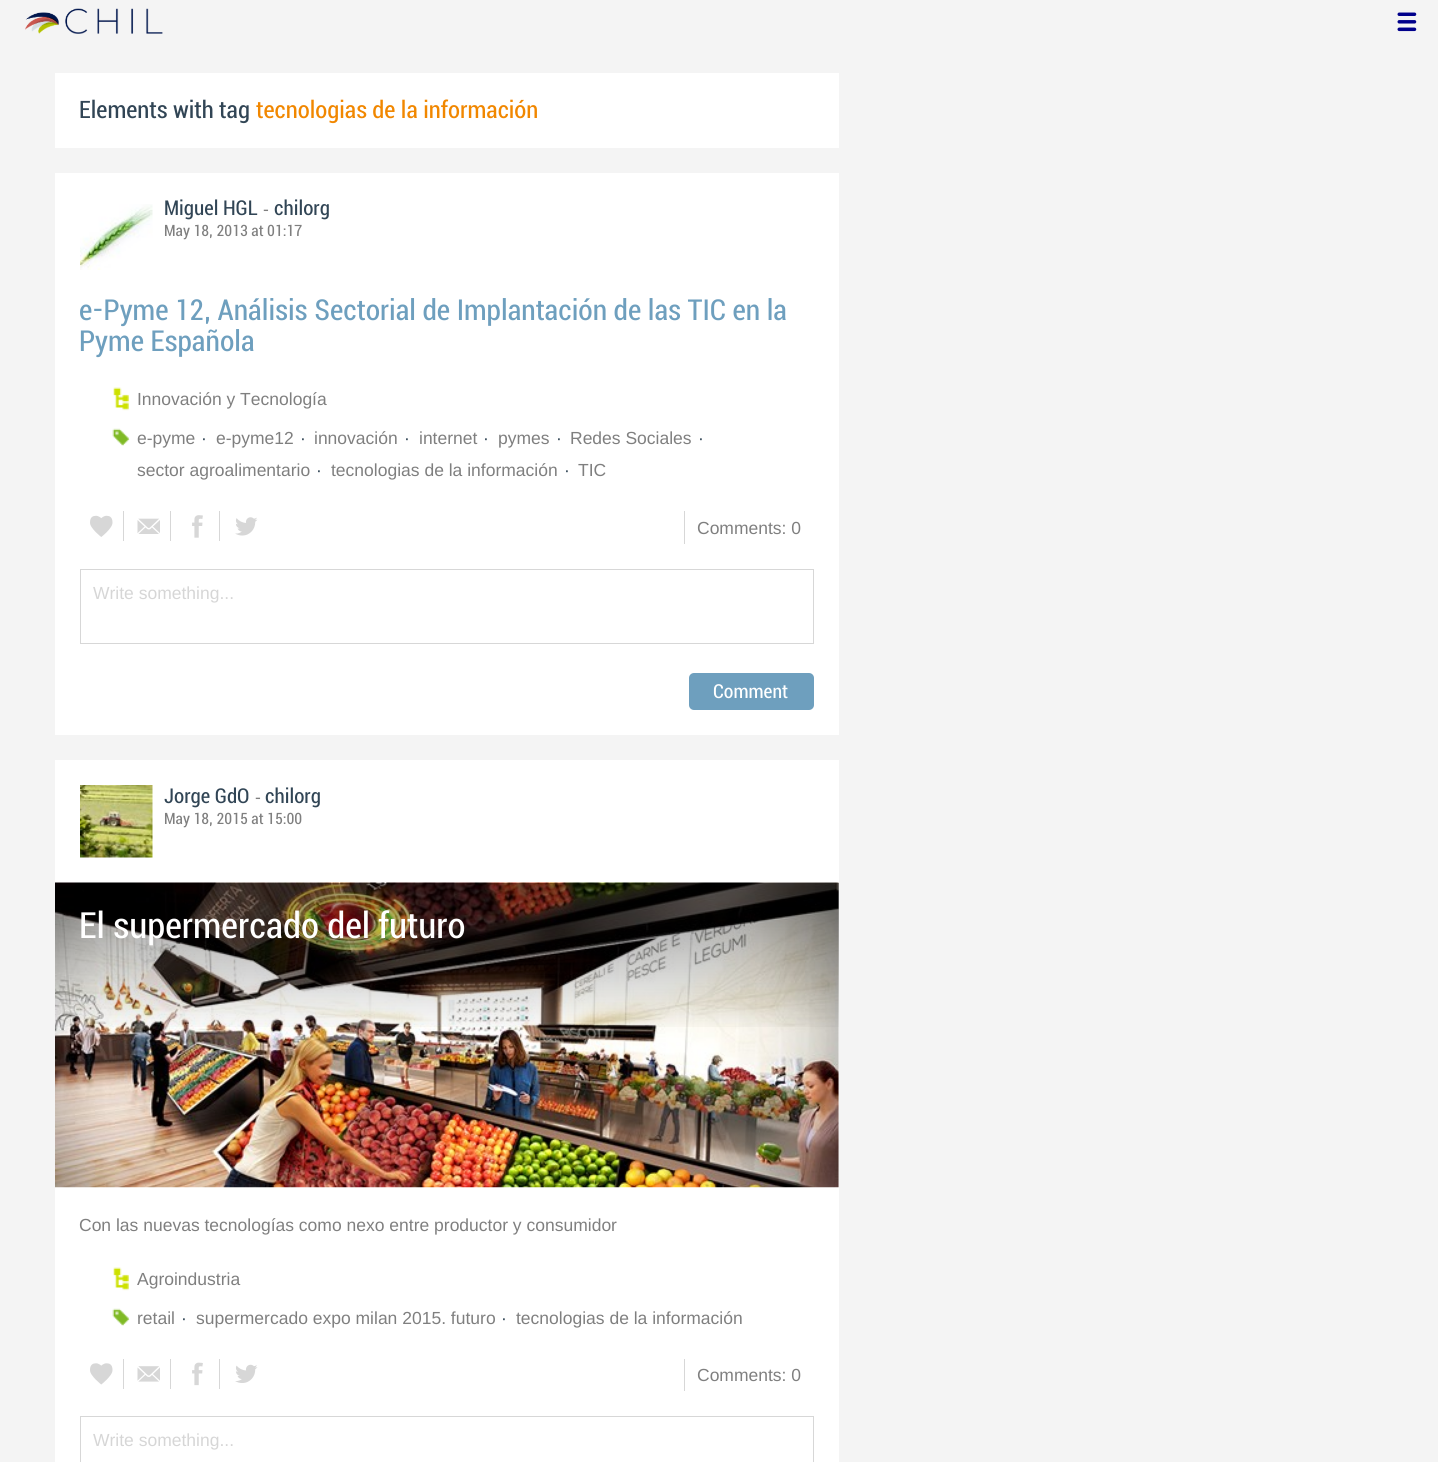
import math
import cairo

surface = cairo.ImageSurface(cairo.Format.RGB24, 1438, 1462)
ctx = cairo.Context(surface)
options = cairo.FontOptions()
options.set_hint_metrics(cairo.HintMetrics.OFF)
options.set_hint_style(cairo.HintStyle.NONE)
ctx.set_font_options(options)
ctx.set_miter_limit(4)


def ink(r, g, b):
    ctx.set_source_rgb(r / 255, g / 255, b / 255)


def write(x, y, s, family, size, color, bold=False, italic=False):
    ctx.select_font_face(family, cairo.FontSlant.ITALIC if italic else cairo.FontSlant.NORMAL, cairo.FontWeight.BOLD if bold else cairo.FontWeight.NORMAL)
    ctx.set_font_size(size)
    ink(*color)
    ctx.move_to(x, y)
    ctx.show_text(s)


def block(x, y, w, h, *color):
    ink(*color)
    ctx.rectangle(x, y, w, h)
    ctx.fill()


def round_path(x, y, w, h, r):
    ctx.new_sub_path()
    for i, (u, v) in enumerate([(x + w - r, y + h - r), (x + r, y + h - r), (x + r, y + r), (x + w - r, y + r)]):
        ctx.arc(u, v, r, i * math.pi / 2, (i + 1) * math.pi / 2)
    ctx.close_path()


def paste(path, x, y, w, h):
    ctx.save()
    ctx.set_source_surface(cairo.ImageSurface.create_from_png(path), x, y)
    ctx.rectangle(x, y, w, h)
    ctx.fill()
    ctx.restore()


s1 = dict(family="Roboto", size=25, color=(49, 69, 85))
s2 = dict(family="Roboto", size=25, color=(241, 135, 0))
s3 = dict(family="Roboto", size=21.25, color=(49, 69, 85))
s4 = dict(family="Liberation Sans", size=17.5, color=(127, 127, 127))
s5 = dict(family="Roboto", size=16.25, color=(127, 127, 127))
s6 = dict(family="Roboto", size=30, color=(110, 159, 190))
s7 = dict(family="Liberation Sans", size=17.5, color=(49, 69, 85))
s8 = dict(family="Liberation Sans", size=17.5, color=(214, 214, 214))
s9 = dict(family="Roboto", size=20, color=(255, 255, 255))
s10 = dict(family="Roboto", size=37.5, color=(255, 255, 255))

ink(244, 244, 244)
ctx.paint()
paste("pic1.png", 25, 8, 138, 26)
paste("pic2.png", 1397, 12, 20, 20)
block(55, 73, 784, 75, 255, 255, 255)
write(79, 118, "Elements with tag", **s1)
write(256, 118, "tecnologias de la información", **s2)
block(55, 173, 784, 562, 255, 255, 255)
paste("pic3.png", 80, 204, 73, 66)
write(164, 215, "Miguel HGL", **s3)
write(263, 215, "-", **s4)
write(274, 215, "chilorg", **s3)
write(164, 236, "May 18, 2013 at 01:17", **s5)
write(79, 320, "e-Pyme 12, Análisis Sectorial de Implantación de las TIC en la", **s6)
write(79, 351, "Pyme Española", **s6)
paste("pic4.png", 113, 387, 16, 24)
write(137, 405, "Innovación y Tecnología", **s4)
paste("pic5.png", 112, 428, 18, 18)
write(137, 444, "e-pyme", **s4)
write(201, 444, "·", **s7)
write(216, 444, "e-pyme12", **s4)
write(300, 444, "·", **s7)
write(314, 444, "innovación", **s4)
write(404, 444, "·", **s7)
write(419, 444, "internet", **s4)
write(483, 444, "·", **s7)
write(498, 444, "pymes", **s4)
write(556, 444, "·", **s7)
write(570, 444, "Redes Sociales", **s4)
write(698, 444, "·", **s7)
write(137, 476, "sector agroalimentario", **s4)
write(316, 476, "·", **s7)
write(331, 476, "tecnologias de la información", **s4)
write(564, 476, "·", **s7)
write(578, 476, "TIC", **s4)
block(123, 511, 1, 30, 215, 215, 215)
paste("pic6.png", 90, 515, 23, 22)
block(170, 511, 1, 30, 215, 215, 215)
paste("pic7.png", 137, 518, 23, 16)
block(219, 511, 1, 30, 215, 215, 215)
paste("pic8.png", 192, 515, 11, 23)
paste("pic9.png", 235, 517, 23, 19)
block(684, 511, 1, 33, 215, 215, 215)
write(697, 534, "Comments: 0", **s4)
ctx.rectangle(80.5, 569.5, 733, 74)
ink(215, 215, 215)
ctx.set_line_width(1)
ctx.stroke()
write(93, 599, "Write something...", **s8)
ink(110, 159, 190)
round_path(689, 673, 125, 37, 5)
ctx.fill()
write(713, 698, "Comment", **s9)
block(55, 760, 784, 702, 255, 255, 255)
paste("pic10.png", 80, 785, 73, 73)
write(164, 803, "Jorge GdO", **s3)
write(255, 803, "-", **s4)
write(265, 803, "chilorg", **s3)
write(164, 824, "May 18, 2015 at 15:00", **s5)
paste("pic11.png", 55, 882, 784, 306)
gradient = cairo.LinearGradient(447, 883, 447, 1035)
gradient.add_color_stop_rgba(0, 0, 0, 0, 0.4)
gradient.add_color_stop_rgba(1, 0, 0, 0, 0)
ctx.set_source(gradient)
ctx.rectangle(55, 883, 784, 144)
ctx.fill()
write(79, 938, "El supermercado del futuro", **s10)
write(79, 1231, "Con las nuevas tecnologías como nexo entre productor y consumidor", **s4)
paste("pic4.png", 113, 1267, 16, 24)
write(137, 1285, "Agroindustria", **s4)
paste("pic5.png", 112, 1308, 18, 18)
write(137, 1324, "retail", **s4)
write(181, 1324, "·", **s7)
write(196, 1324, "supermercado expo milan 2015. futuro", **s4)
write(501, 1324, "·", **s7)
write(516, 1324, "tecnologias de la información", **s4)
block(123, 1359, 1, 30, 215, 215, 215)
paste("pic12.png", 90, 1363, 23, 22)
block(170, 1359, 1, 30, 215, 215, 215)
paste("pic13.png", 137, 1366, 23, 16)
block(219, 1359, 1, 30, 215, 215, 215)
paste("pic14.png", 192, 1362, 11, 24)
paste("pic15.png", 235, 1364, 23, 19)
block(684, 1359, 1, 32, 215, 215, 215)
write(697, 1381, "Comments: 0", **s4)
ctx.rectangle(80.5, 1416.5, 733, 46)
ink(215, 215, 215)
ctx.stroke()
write(93, 1446, "Write something...", **s8)
surface.write_to_png("screenshot.png")
